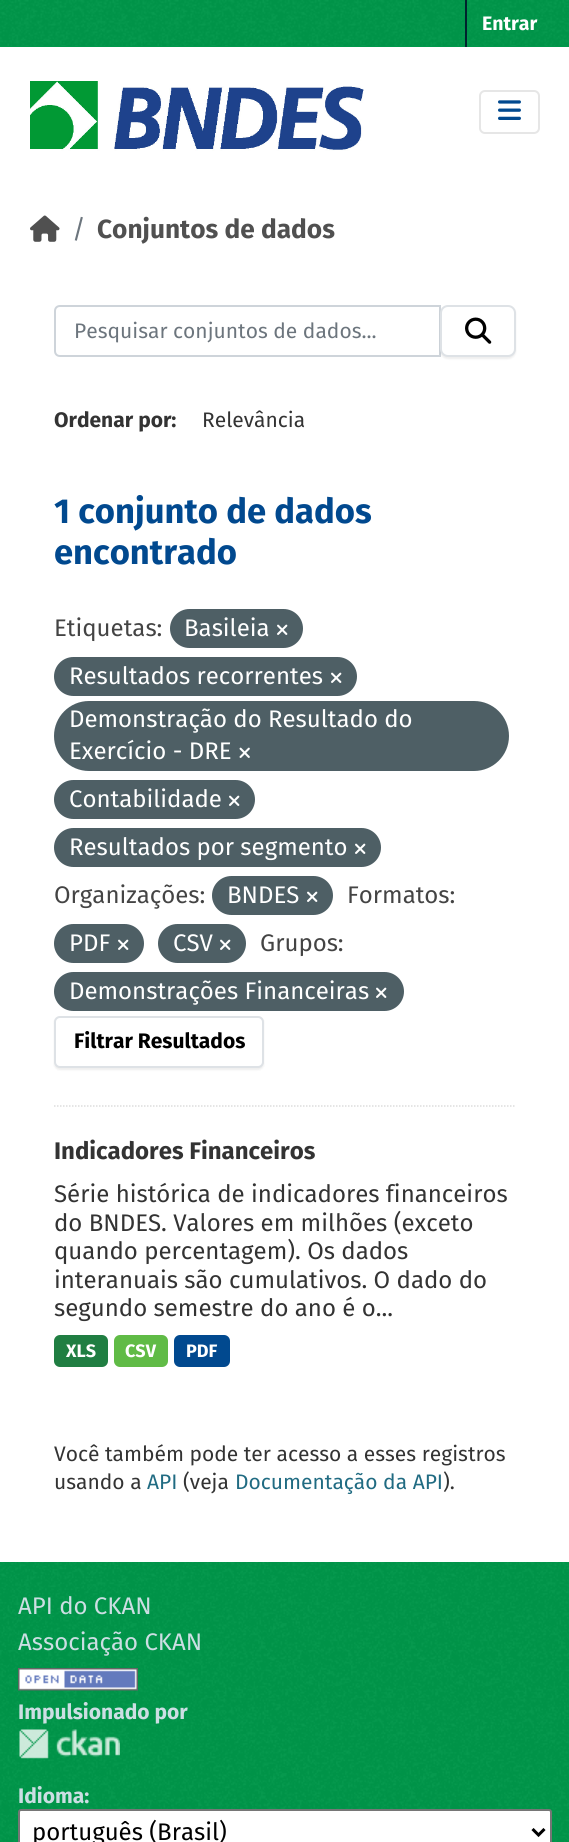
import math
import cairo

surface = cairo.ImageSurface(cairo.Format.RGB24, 569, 1842)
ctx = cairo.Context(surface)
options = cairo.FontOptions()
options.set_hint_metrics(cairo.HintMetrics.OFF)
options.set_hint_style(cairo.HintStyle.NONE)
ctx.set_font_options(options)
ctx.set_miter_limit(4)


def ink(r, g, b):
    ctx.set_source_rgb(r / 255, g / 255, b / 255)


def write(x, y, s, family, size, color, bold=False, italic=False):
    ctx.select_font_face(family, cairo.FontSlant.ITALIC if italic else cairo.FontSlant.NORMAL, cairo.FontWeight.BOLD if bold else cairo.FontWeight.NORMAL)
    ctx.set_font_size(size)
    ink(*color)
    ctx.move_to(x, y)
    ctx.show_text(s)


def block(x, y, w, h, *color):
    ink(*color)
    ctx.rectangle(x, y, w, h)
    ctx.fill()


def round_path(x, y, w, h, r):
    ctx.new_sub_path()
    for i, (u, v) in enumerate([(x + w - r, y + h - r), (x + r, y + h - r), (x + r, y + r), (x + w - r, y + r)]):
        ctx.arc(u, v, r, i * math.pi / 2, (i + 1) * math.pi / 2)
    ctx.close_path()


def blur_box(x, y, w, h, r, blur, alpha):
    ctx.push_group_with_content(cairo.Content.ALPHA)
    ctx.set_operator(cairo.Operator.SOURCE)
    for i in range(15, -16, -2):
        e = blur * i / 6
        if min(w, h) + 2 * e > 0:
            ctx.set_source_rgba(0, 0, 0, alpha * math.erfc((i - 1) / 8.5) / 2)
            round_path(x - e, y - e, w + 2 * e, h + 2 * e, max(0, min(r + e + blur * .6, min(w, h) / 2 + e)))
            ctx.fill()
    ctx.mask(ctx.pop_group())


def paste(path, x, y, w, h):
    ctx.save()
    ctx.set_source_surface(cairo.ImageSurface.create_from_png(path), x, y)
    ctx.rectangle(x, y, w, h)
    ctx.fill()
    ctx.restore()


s1 = dict(family="Fira Sans", size=19.5, color=(255, 255, 255), bold=True)
s2 = dict(family="Fira Sans", size=26.25, color=(108, 117, 125))
s3 = dict(family="Fira Sans", size=26.25, color=(80, 80, 80), bold=True)
s4 = dict(family="Fira Sans", size=21, color=(108, 117, 125))
s5 = dict(family="Fira Sans", size=21, color=(51, 51, 51), bold=True)
s6 = dict(family="Fira Sans", size=21, color=(51, 51, 51))
s7 = dict(family="Fira Sans", size=34.6, color=(1, 73, 143), bold=True)
s8 = dict(family="Fira Sans", size=24, color=(68, 68, 68))
s9 = dict(family="Fira Sans", size=24, color=(255, 255, 255))
s10 = dict(family="Fira Sans", size=21, color=(0, 0, 0), bold=True)
s11 = dict(family="Fira Sans", size=24, color=(51, 51, 51), bold=True)
s12 = dict(family="Fira Sans", size=24, color=(51, 51, 51))
s13 = dict(family="Fira Sans", size=18, color=(255, 255, 255), bold=True)
s14 = dict(family="Fira Sans", size=21, color=(32, 107, 130))
s15 = dict(family="Fira Sans", size=24, color=(204, 222, 227))
s16 = dict(family="Fira Sans", size=21, color=(204, 222, 227), bold=True)
s17 = dict(family="Fira Sans", size=24, color=(0, 0, 0))

ink(255, 255, 255)
ctx.paint()
block(0, 0, 569, 47, 0, 152, 74)
paste("pic1.png", 0, 0, 569, 46)
block(465, 0, 2, 47, 0, 35, 46)
write(482, 30, "Entrar", **s1)
paste("pic2.png", 30, 81, 334, 70)
round_path(480, 91, 59, 42, 5)
ink(230, 230, 230)
ctx.stroke()
paste("pic3.png", 498, 100, 23, 20)
paste("pic4.png", 30, 215, 30, 27)
write(72, 238, "/", **s2)
write(97, 238, "Conjuntos de dados", **s3)
ctx.new_path()
ctx.move_to(54, 1106)
ctx.line_to(516, 1106)
ink(221, 221, 221)
ctx.set_line_width(1.5)
ctx.set_dash([1.5, 1.5])
ctx.stroke()
ctx.new_path()
ctx.move_to(60, 306)
ctx.line_to(440, 306)
ctx.line_to(440, 356)
ctx.line_to(60, 356)
ctx.curve_to(57, 356, 55, 354, 55, 351)
ctx.line_to(55, 311)
ctx.curve_to(55, 308, 57, 306, 60, 306)
ctx.close_path()
ink(206, 212, 218)
ctx.set_line_width(2)
ctx.set_dash([])
ctx.stroke()
write(74, 338, "Pesquisar conjuntos de dados...", **s4)
ink(0, 0, 0)
blur_box(440, 306, 76, 53, 8, 1, 0.07)
ink(255, 255, 255)
round_path(441, 306, 74, 50, 7)
ctx.fill_preserve()
ink(222, 226, 230)
ctx.stroke()
paste("pic5.png", 465, 317, 27, 27)
write(54, 427, "Ordenar por:", **s5)
write(202, 427, "Relevância", **s6)
write(54, 523, "1 conjunto de dados", **s7)
write(54, 564, "encontrado", **s7)
write(54, 636, "Etiquetas:", **s8)
ink(78, 95, 101)
round_path(170, 609, 133, 39, 19.5)
ctx.fill()
write(184, 636, "Basileia", **s9)
paste("pic6.png", 277, 624, 11, 11)
ink(78, 95, 101)
round_path(54, 657, 303, 39, 19.5)
ctx.fill()
write(69, 684, "Resultados recorrentes", **s9)
paste("pic6.png", 331, 672, 11, 11)
ink(78, 95, 101)
round_path(54, 701, 455, 70, 35)
ctx.fill()
write(69, 727, "Demonstração do Resultado do", **s9)
write(69, 759, "Exercício - DRE", **s9)
paste("pic7.png", 239, 747, 11, 11)
ink(78, 95, 101)
round_path(54, 780, 201, 39, 19.5)
ctx.fill()
write(69, 807, "Contabilidade", **s9)
paste("pic6.png", 229, 795, 11, 11)
ink(78, 95, 101)
round_path(54, 828, 327, 39, 19.5)
ctx.fill()
write(69, 855, "Resultados por segmento", **s9)
paste("pic6.png", 355, 843, 11, 11)
write(54, 903, "Organizações:", **s8)
ink(78, 95, 101)
round_path(212, 876, 121, 39, 19.5)
ctx.fill()
write(227, 903, "BNDES", **s9)
paste("pic6.png", 307, 891, 11, 11)
write(347, 903, "Formatos:", **s8)
ink(78, 95, 101)
round_path(54, 924, 90, 39, 19.5)
ctx.fill()
write(69, 951, "PDF", **s9)
paste("pic6.png", 118, 939, 11, 11)
ink(78, 95, 101)
round_path(158, 924, 88, 39, 19.5)
ctx.fill()
write(173, 951, "CSV", **s9)
paste("pic6.png", 220, 939, 11, 11)
write(260, 951, "Grupos:", **s8)
ink(78, 95, 101)
round_path(54, 972, 350, 39, 19.5)
ctx.fill()
write(69, 999, "Demonstrações Financeiras", **s9)
paste("pic6.png", 376, 987, 11, 11)
ink(0, 0, 0)
blur_box(54, 1017, 210, 53, 6, 1, 0.07)
ink(255, 255, 255)
round_path(55, 1017, 208, 50, 5)
ctx.fill_preserve()
ink(222, 226, 230)
ctx.stroke()
write(74, 1048, "Filtrar Resultados", **s10)
write(54, 1159, "Indicadores Financeiros", **s11)
write(54, 1202, "Série histórica de indicadores financeiros", **s12)
write(54, 1231, "do BNDES. Valores em milhões (exceto", **s12)
write(54, 1259, "quando percentagem). Os dados", **s12)
write(54, 1288, "interanuais são cumulativos. O dado do", **s12)
write(54, 1316, "segundo semestre do ano é o...", **s12)
ink(32, 126, 66)
round_path(54, 1335, 54, 32, 6)
ctx.fill()
write(66, 1357, "XLS", **s13)
ink(96, 187, 70)
round_path(114, 1335, 54, 32, 6)
ctx.fill()
write(125, 1357, "CSV", **s13)
ink(1, 73, 143)
round_path(174, 1335, 56, 32, 6)
ctx.fill()
write(186, 1357, "PDF", **s13)
write(54, 1461, "Você também pode ter acesso a esses registros", **s6)
write(54, 1489, "usando a", **s6)
write(147, 1489, "API", **s14)
write(183, 1489, "(veja", **s6)
write(235, 1489, "Documentação da API", **s14)
write(443, 1489, ").", **s6)
block(0, 1562, 569, 280, 0, 152, 74)
paste("pic8.png", 0, 1562, 569, 280)
write(18, 1614, "API do CKAN", **s15)
write(18, 1650, "Associação CKAN", **s15)
paste("pic9.png", 18, 1668, 120, 23)
write(18, 1719, "Impulsionado por", **s16)
paste("pic10.png", 19, 1729, 101, 30)
write(18, 1803, "Idioma:", **s16)
ink(255, 255, 255)
round_path(19, 1810, 532, 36, 2)
ctx.fill_preserve()
ink(118, 118, 118)
ctx.stroke()
ctx.new_path()
ctx.move_to(532.5, 1829)
ctx.line_to(538.5, 1835)
ctx.line_to(544.5, 1829)
ink(0, 0, 0)
ctx.set_line_width(3)
ctx.stroke()
write(32, 1840, "português (Brasil)", **s17)
surface.write_to_png("screenshot.png")
